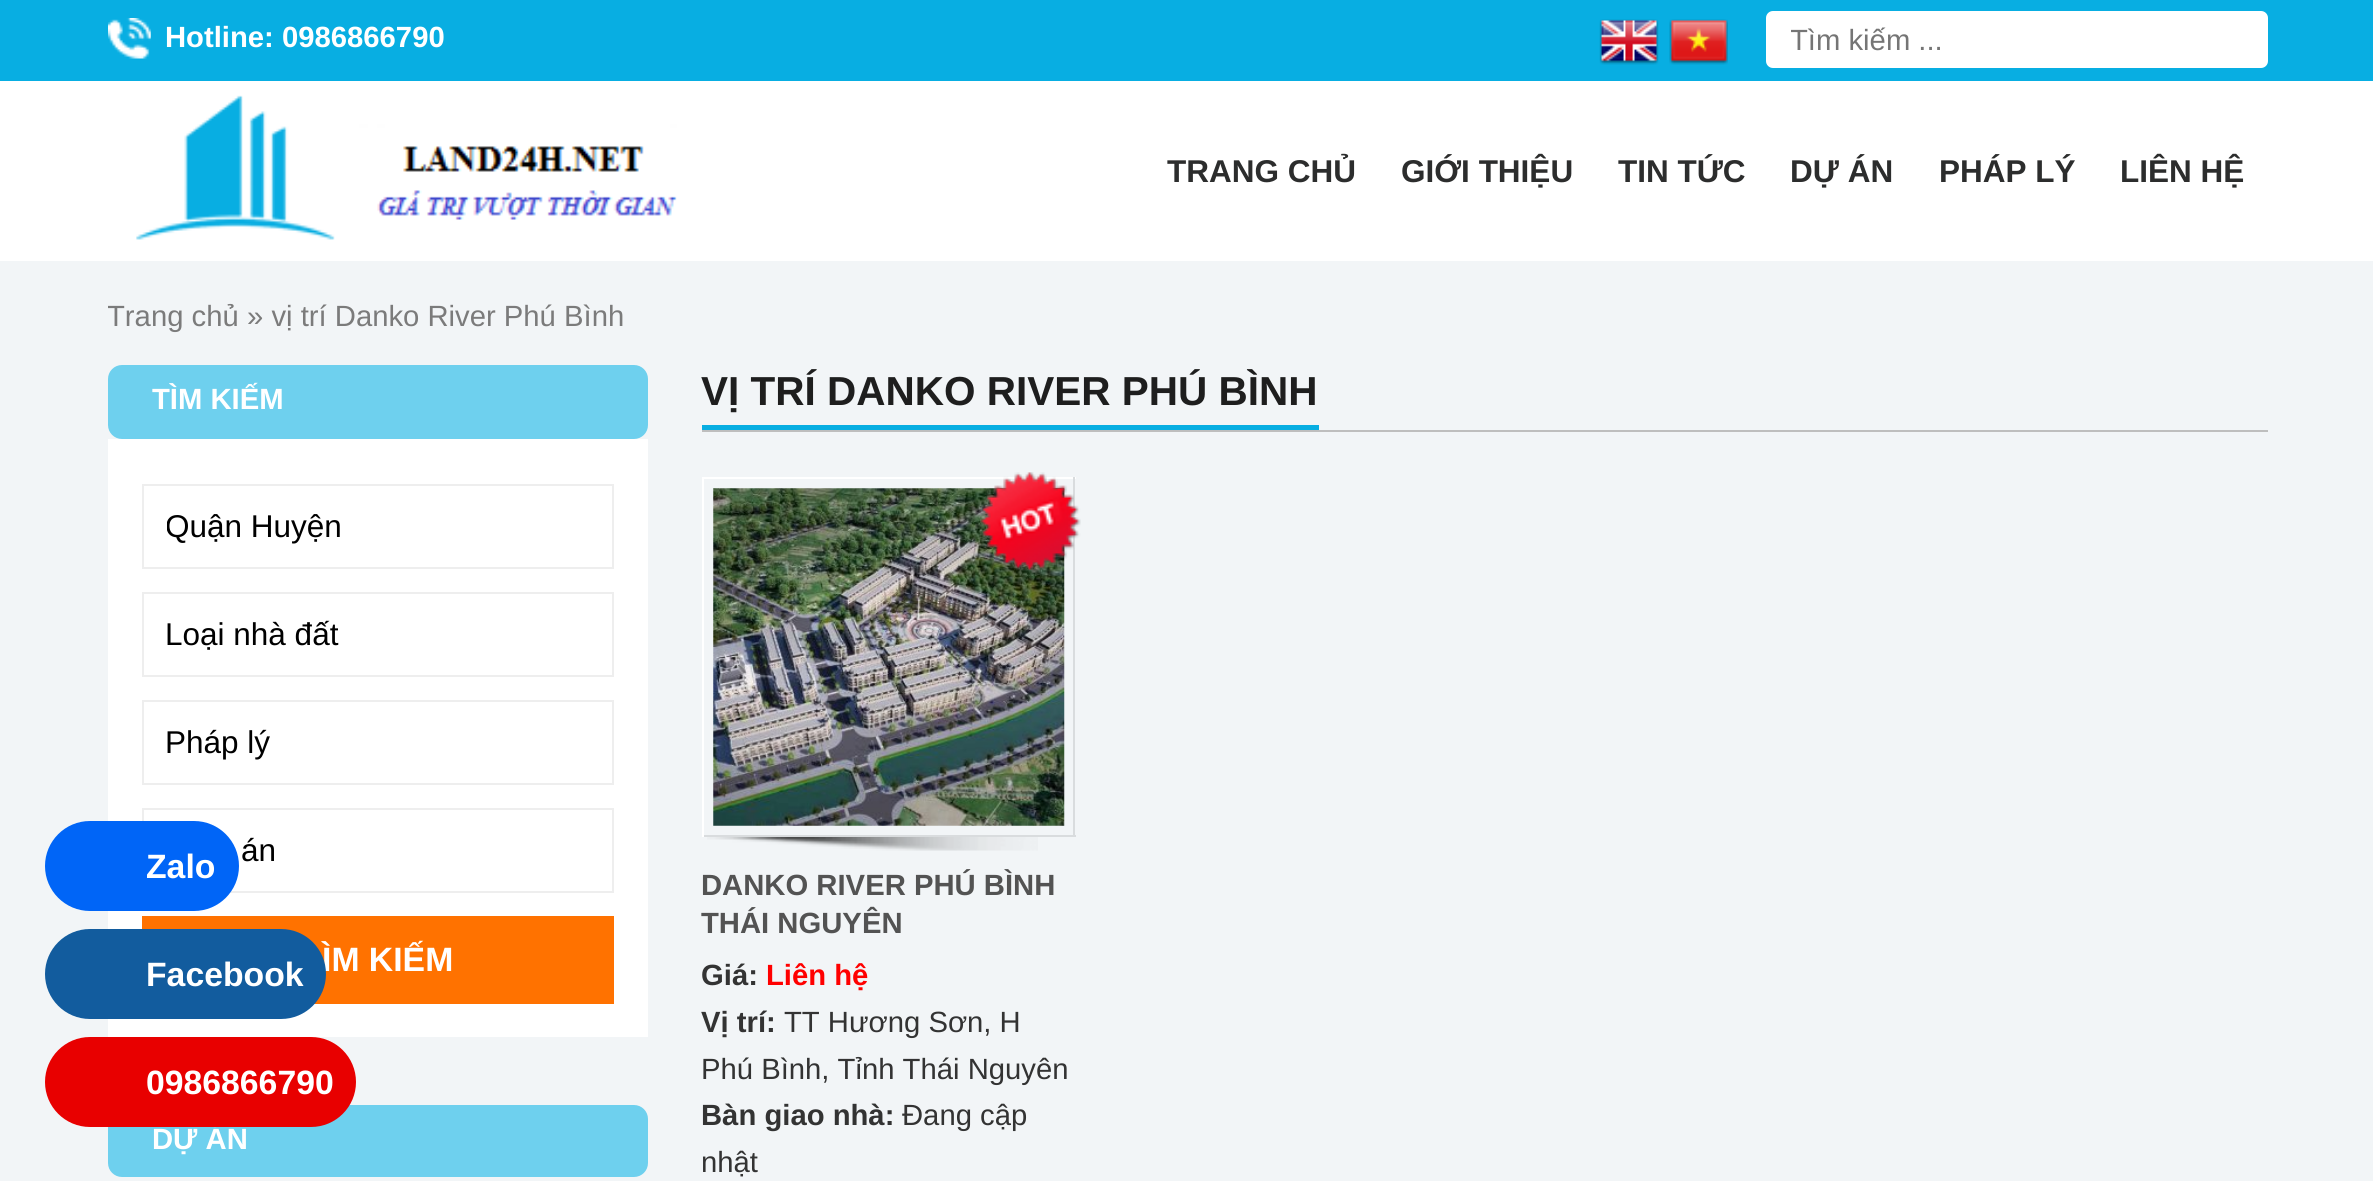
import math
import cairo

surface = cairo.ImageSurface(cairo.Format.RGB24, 2373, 1181)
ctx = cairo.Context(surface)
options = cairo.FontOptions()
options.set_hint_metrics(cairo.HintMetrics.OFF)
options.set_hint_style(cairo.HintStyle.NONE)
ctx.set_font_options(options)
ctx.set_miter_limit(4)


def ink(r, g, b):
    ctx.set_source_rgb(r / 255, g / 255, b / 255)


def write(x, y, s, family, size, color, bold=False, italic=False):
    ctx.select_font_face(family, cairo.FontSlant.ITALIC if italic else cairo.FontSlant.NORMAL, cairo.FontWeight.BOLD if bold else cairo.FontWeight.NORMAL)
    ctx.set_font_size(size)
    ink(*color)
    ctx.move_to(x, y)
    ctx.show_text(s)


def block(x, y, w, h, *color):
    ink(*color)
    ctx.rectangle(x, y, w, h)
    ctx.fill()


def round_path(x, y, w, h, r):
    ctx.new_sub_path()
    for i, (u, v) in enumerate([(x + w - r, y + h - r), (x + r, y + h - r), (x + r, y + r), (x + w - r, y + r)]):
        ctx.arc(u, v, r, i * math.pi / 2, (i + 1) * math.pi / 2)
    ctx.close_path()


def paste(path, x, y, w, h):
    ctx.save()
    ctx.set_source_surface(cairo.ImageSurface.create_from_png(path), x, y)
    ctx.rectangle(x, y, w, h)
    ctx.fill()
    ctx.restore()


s1 = dict(family="Liberation Sans", size=29.25, color=(255, 255, 255), bold=True)
s2 = dict(family="Liberation Sans", size=29.25, color=(117, 117, 117))
s3 = dict(family="Liberation Sans", size=31.5, color=(44, 45, 45), bold=True)
s4 = dict(family="Liberation Sans", size=29.25, color=(123, 123, 123))
s5 = dict(family="Liberation Sans", size=31.5, color=(0, 0, 0))
s6 = dict(family="Liberation Sans", size=33.75, color=(255, 255, 255), bold=True)
s7 = dict(family="Liberation Sans", size=40.5, color=(30, 30, 30), bold=True)
s8 = dict(family="Liberation Sans", size=29.25, color=(83, 83, 83), bold=True)
s9 = dict(family="Liberation Sans", size=29.25, color=(51, 51, 51), bold=True)
s10 = dict(family="Liberation Sans", size=29.25, color=(255, 0, 0), bold=True)
s11 = dict(family="Liberation Sans", size=29.25, color=(51, 51, 51))

ink(242, 245, 247)
ctx.paint()
block(0, 0, 2373, 81, 8, 174, 226)
paste("pic1.png", 108, 18, 43, 41)
write(165, 47, "Hotline: 0986866790", **s1)
paste("pic2.png", 1599, 19, 60, 46)
paste("pic3.png", 1669, 19, 59, 46)
round_path(1767, 12, 500, 55, 6)
ctx.fill_preserve()
ctx.stroke()
ctx.save()
ctx.rectangle(1791, 23, 396, 33)
ctx.clip()
write(1790, 50, "Tìm kiếm ...", **s2)
ctx.restore()
block(0, 81, 2373, 180, 255, 255, 255)
paste("pic4.png", 136, 95, 541, 145)
write(1167, 182, "TRANG CHỦ", **s3)
write(1401, 182, "GIỚI THIỆU", **s3)
write(1618, 182, "TIN TỨC", **s3)
write(1790, 182, "DỰ ÁN", **s3)
write(1939, 182, "PHÁP LÝ", **s3)
write(2120, 182, "LIÊN HỆ", **s3)
ctx.save()
ctx.rectangle(108, 295, 2160, 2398)
ctx.clip()
write(107, 326, "Trang chủ", **s4)
ctx.restore()
write(247, 326, "» vị trí Danko River Phú Bình", **s4)
ink(110, 208, 238)
round_path(108, 365, 540, 74, 14)
ctx.fill()
write(152, 409, "TÌM KIẾM", **s1)
block(108, 439, 540, 598, 255, 255, 255)
ctx.rectangle(143, 485, 470, 83)
ink(238, 238, 238)
ctx.stroke()
ctx.save()
ctx.rectangle(167, 509, 423, 36)
ctx.clip()
write(165, 537, "Quận Huyện", **s5)
ctx.restore()
ctx.rectangle(143, 593, 470, 83)
ctx.stroke()
write(165, 645, "Loại nhà đất", **s5)
ctx.rectangle(143, 701, 470, 83)
ink(238, 238, 238)
ctx.stroke()
write(165, 753, "Pháp lý", **s5)
ctx.rectangle(143, 809, 470, 83)
ink(238, 238, 238)
ctx.stroke()
write(241, 861, "án", **s5)
block(142, 916, 472, 88, 255, 114, 0)
write(322, 971, "ÌM KIẾM", **s6)
ink(110, 208, 238)
round_path(108, 1105, 540, 72, 14)
ctx.fill()
write(152, 1149, "DỰ ÁN", **s1)
block(702, 430, 1566, 2, 190, 190, 190)
block(702, 425, 617, 5, 8, 174, 226)
write(701, 405, "VỊ TRÍ DANKO RIVER PHÚ BÌNH", **s7)
block(702, 477, 374, 2, 255, 255, 255)
paste("pic6.png", 713, 488, 352, 338)
block(1073, 477, 2, 360, 217, 220, 222)
paste("pic5.png", 980, 472, 101, 100)
block(702, 835, 374, 2, 217, 220, 222)
block(702, 477, 2, 360, 255, 255, 255)
paste("pic7.png", 707, 837, 331, 14)
write(701, 895, "DANKO RIVER PHÚ BÌNH", **s8)
write(701, 933, "THÁI NGUYÊN", **s8)
write(701, 985, "Giá:", **s9)
write(766, 985, "Liên hệ", **s10)
write(701, 1032, "Vị trí:", **s9)
write(784, 1032, "TT Hương Sơn, H", **s11)
write(701, 1079, "Phú Bình, Tỉnh Thái Nguyên", **s11)
write(701, 1125, "Bàn giao nhà:", **s9)
write(902, 1125, "Đang cập", **s11)
write(701, 1172, "nhật", **s11)
ink(0, 101, 247)
round_path(45, 821, 194, 90, 45)
ctx.fill()
write(146, 878, "Zalo", **s6)
ink(18, 92, 158)
round_path(45, 929, 281, 90, 45)
ctx.fill()
write(146, 986, "Facebook", **s6)
ink(232, 0, 0)
round_path(45, 1037, 311, 90, 45)
ctx.fill()
write(146, 1094, "0986866790", **s6)
surface.write_to_png("screenshot.png")
